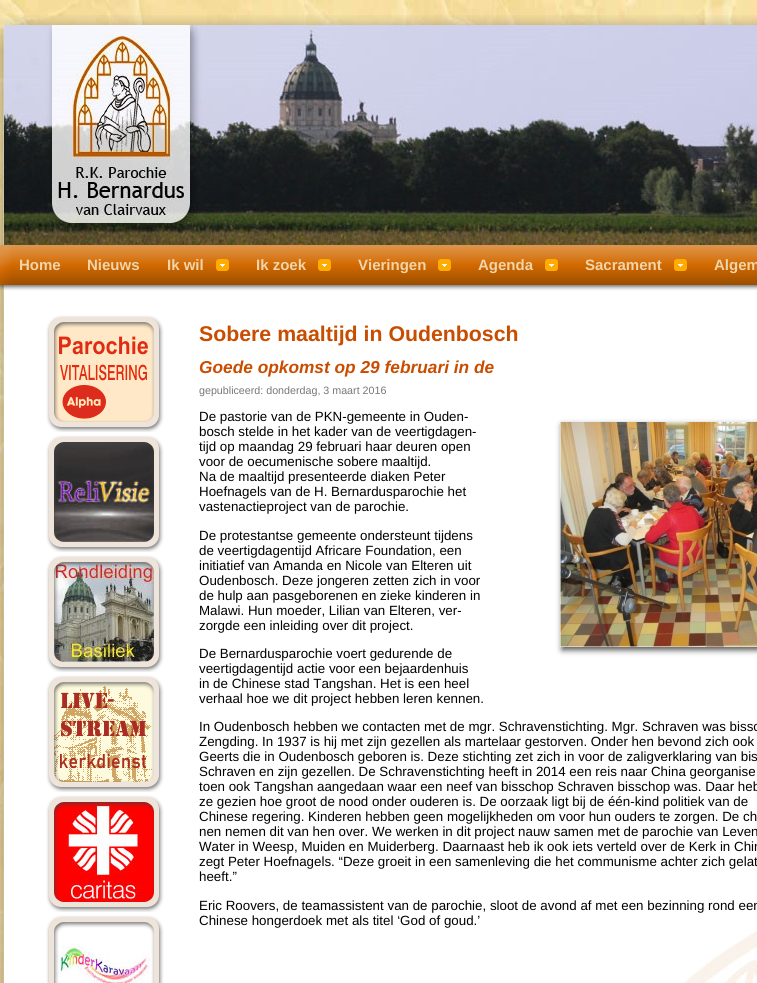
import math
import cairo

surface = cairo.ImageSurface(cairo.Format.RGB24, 757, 983)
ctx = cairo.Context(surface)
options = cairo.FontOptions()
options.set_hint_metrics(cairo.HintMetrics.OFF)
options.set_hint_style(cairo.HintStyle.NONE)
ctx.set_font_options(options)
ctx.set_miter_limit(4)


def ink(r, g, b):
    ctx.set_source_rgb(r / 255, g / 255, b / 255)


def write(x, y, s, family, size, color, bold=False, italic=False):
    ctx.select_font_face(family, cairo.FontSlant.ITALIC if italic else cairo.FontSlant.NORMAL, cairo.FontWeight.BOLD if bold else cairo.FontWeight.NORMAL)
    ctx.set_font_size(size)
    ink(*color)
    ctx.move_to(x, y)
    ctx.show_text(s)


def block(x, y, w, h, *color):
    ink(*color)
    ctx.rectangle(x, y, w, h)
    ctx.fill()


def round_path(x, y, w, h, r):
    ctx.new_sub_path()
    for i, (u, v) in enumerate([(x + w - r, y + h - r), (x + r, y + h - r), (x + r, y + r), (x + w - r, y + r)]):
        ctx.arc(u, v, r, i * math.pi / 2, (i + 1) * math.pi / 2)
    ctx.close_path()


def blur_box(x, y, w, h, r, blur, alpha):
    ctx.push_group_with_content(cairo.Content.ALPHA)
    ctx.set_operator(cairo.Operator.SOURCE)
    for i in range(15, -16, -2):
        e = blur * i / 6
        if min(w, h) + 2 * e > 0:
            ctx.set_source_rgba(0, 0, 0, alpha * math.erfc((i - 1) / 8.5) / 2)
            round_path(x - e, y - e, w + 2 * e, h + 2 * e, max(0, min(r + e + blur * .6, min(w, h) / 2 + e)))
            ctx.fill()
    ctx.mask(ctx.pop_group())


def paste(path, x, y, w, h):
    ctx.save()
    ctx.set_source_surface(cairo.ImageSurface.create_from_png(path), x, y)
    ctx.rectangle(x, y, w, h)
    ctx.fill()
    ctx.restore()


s1 = dict(family="Liberation Sans", size=15, color=(241, 213, 170), bold=True)
s2 = dict(family="Liberation Sans", size=21.3, color=(201, 77, 0), bold=True)
s3 = dict(family="Liberation Sans", size=17.3, color=(201, 77, 0), bold=True, italic=True)
s4 = dict(family="Liberation Sans", size=10.7, color=(119, 119, 119))
s5 = dict(family="Liberation Sans", size=13.35, color=(0, 0, 0))

ink(255, 255, 255)
ctx.paint()
paste("pic1.png", 0, 0, 757, 983)
paste("pic2.png", 0, 15, 757, 277)
paste("pic3.png", 4, 25, 753, 220)
write(19, 270, "Home", **s1)
write(87, 270, "Nieuws", **s1)
paste("pic4.png", 216, 259, 13, 12)
write(167, 270, "Ik wil", **s1)
paste("pic4.png", 318, 259, 13, 12)
write(256, 270, "Ik zoek", **s1)
paste("pic4.png", 438, 259, 13, 12)
write(358, 270, "Vieringen", **s1)
paste("pic4.png", 545, 259, 13, 12)
write(478, 270, "Agenda", **s1)
paste("pic4.png", 674, 259, 13, 12)
write(585, 270, "Sacrament", **s1)
write(714, 270, "Algem", **s1)
paste("pic5.png", 0, 292, 4, 691)
block(4, 292, 753, 691, 255, 255, 255)
paste("pic6.png", 684, 931, 73, 52)
paste("pic7.png", 54, 322, 100, 100)
paste("pic8.png", 46, 315, 118, 117)
paste("pic9.png", 54, 442, 100, 100)
paste("pic10.png", 46, 435, 118, 117)
paste("pic11.png", 54, 562, 100, 100)
paste("pic12.png", 46, 555, 118, 117)
paste("pic13.png", 54, 683, 99, 99)
paste("pic14.png", 46, 675, 118, 117)
paste("pic15.png", 54, 802, 100, 100)
paste("pic16.png", 46, 795, 118, 117)
paste("pic17.png", 54, 946, 96, 37)
paste("pic18.png", 46, 915, 118, 68)
write(199, 341, "Sobere maaltijd in Oudenbosch", **s2)
write(199, 373, "Goede opkomst op 29 februari in de", **s3)
write(199, 394, "gepubliceerd: donderdag, 3 maart 2016", **s4)
write(199, 421, "De pastorie van de PKN-gemeente in Ouden-", **s5)
write(199, 436, "bosch stelde in het kader van de veertigdagen-", **s5)
write(199, 451, "tijd op maandag 29 februari haar deuren open", **s5)
write(199, 466, "voor de oecumenische sobere maaltijd.", **s5)
write(199, 481, "Na de maaltijd presenteerde diaken Peter", **s5)
write(199, 496, "Hoefnagels van de H. Bernardusparochie het", **s5)
write(199, 511, "vastenactieproject van de parochie.", **s5)
ink(85, 85, 85)
blur_box(562, 425, 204, 225, 0, 3, 1)
paste("pic19.png", 560, 422, 197, 225)
write(199, 540, "De protestantse gemeente ondersteunt tijdens", **s5)
write(199, 555, "de veertigdagentijd Africare Foundation, een", **s5)
write(199, 570, "initiatief van Amanda en Nicole van Elteren uit", **s5)
write(199, 585, "Oudenbosch. Deze jongeren zetten zich in voor", **s5)
write(199, 600, "de hulp aan pasgeborenen en zieke kinderen in", **s5)
write(199, 615, "Malawi. Hun moeder, Lilian van Elteren, ver-", **s5)
write(199, 630, "zorgde een inleiding over dit project.", **s5)
write(199, 658, "De Bernardusparochie voert gedurende de", **s5)
write(199, 673, "veertigdagentijd actie voor een bejaardenhuis", **s5)
write(199, 688, "in de Chinese stad Tangshan. Het is een heel", **s5)
write(199, 703, "verhaal hoe we dit project hebben leren kennen.", **s5)
write(199, 731, "In Oudenbosch hebben we contacten met de mgr. Schravenstichting. Mgr. Schraven was bissc", **s5)
write(199, 746, "Zengding. In 1937 is hij met zijn gezellen als martelaar gestorven. Onder hen bevond zich ook", **s5)
write(199, 761, "Geerts die in Oudenbosch geboren is. Deze stichting zet zich in voor de zaligverklaring van bis", **s5)
write(199, 776, "Schraven en zijn gezellen. De Schravenstichting heeft in 2014 een reis naar China georganise", **s5)
write(199, 791, "toen ook Tangshan aangedaan waar een neef van bisschop Schraven bisschop was. Daar heb", **s5)
write(199, 806, "ze gezien hoe groot de nood onder ouderen is. De oorzaak ligt bij de één-kind politiek van de", **s5)
write(199, 821, "Chinese regering. Kinderen hebben geen mogelijkheden om voor hun ouders te zorgen. De ch", **s5)
write(199, 836, "nen nemen dit van hen over. We werken in dit project nauw samen met de parochie van Leven", **s5)
write(199, 851, "Water in Weesp, Muiden en Muiderberg. Daarnaast heb ik ook iets verteld over de Kerk in Chin", **s5)
write(199, 866, "zegt Peter Hoefnagels. “Deze groeit in een samenleving die het communisme achter zich gelat", **s5)
write(199, 881, "heeft.”", **s5)
write(199, 910, "Eric Roovers, de teamassistent van de parochie, sloot de avond af met een bezinning rond een", **s5)
write(199, 925, "Chinese hongerdoek met als titel ‘God of goud.’", **s5)
surface.write_to_png("screenshot.png")
